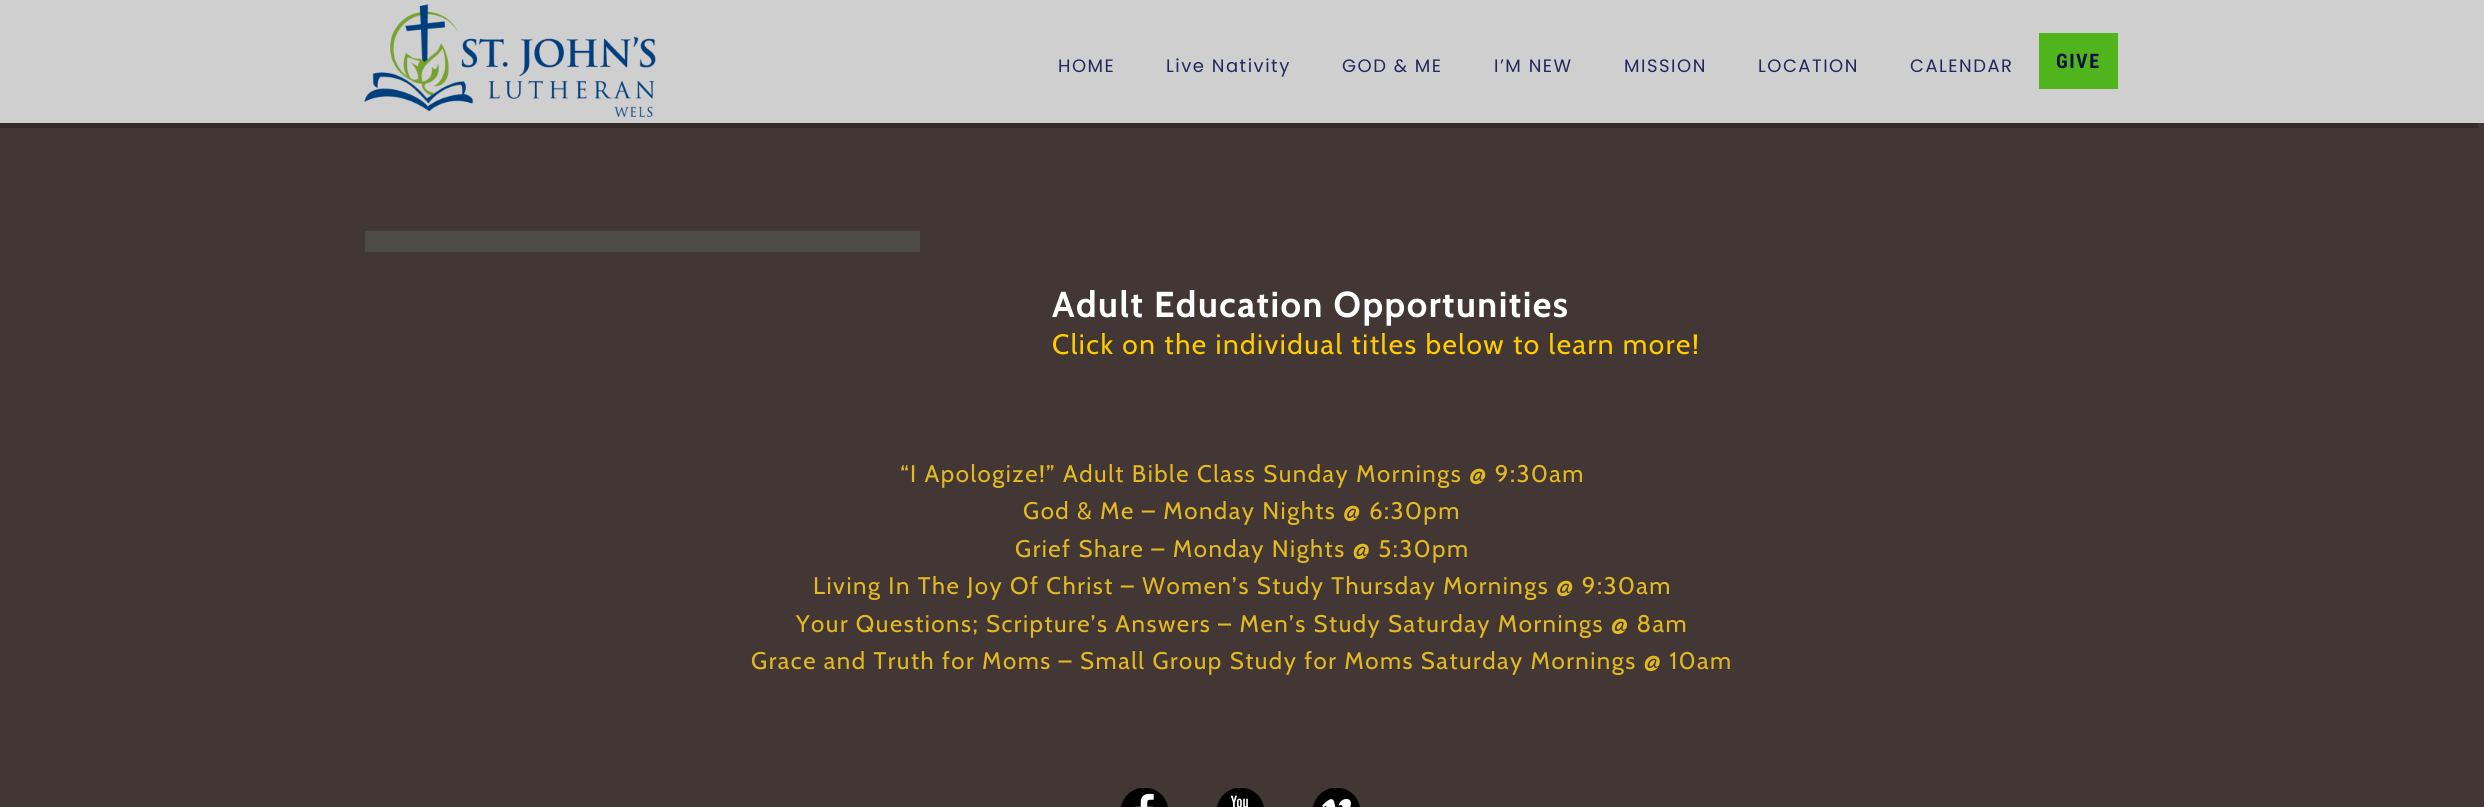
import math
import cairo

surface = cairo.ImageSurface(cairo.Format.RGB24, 2484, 807)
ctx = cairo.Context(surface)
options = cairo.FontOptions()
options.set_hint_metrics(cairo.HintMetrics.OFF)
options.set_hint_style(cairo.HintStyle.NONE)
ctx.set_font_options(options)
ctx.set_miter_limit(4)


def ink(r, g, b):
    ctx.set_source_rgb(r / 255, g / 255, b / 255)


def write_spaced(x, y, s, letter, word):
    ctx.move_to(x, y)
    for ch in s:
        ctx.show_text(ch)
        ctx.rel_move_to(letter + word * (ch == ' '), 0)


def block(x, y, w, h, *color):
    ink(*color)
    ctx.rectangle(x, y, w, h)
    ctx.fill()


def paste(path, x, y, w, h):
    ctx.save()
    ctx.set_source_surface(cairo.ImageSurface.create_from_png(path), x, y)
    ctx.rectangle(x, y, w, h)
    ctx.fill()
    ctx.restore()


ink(66, 55, 52)
ctx.paint()
ink(53, 44, 42)
ctx.new_path()
ctx.move_to(-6, 5)
ctx.line_to(-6, 128)
ctx.line_to(2478, 128)
ctx.line_to(2478, 123)
ctx.line_to(0, 123)
ctx.line_to(0, 5)
ctx.close_path()
ctx.fill()
block(0, 0, 2484, 123, 207, 207, 207)
paste("pic1.png", 364, 4, 292, 113)
ctx.select_font_face("Poppins")
ctx.set_font_size(18)
ink(34, 40, 94)
write_spaced(1058, 72, "HOME", 1.5, 0)
write_spaced(1166, 72, "Live Nativity", 1.5, 0)
write_spaced(1342, 72, "GOD & ME", 1.5, 0)
write_spaced(1494, 72, "I’M NEW", 1.5, 0)
write_spaced(1624, 72, "MISSION", 1.5, 0)
write_spaced(1758, 72, "LOCATION", 1.5, 0)
write_spaced(1910, 72, "CALENDAR", 1.5, 0)
block(2039, 33, 79, 56, 80, 181, 29)
ctx.select_font_face("Roboto Condensed", cairo.FontSlant.NORMAL, cairo.FontWeight.BOLD)
ctx.set_font_size(20)
ink(12, 16, 66)
write_spaced(2056, 68, "GIVE", 1.5, 0)
block(365, 231, 555, 21, 78, 74, 68)
ctx.select_font_face("Cabin", cairo.FontSlant.NORMAL, cairo.FontWeight.BOLD)
ctx.set_font_size(36)
ink(255, 255, 255)
write_spaced(1052, 317, "Adult Education Opportunities", 1.5, 0)
ctx.select_font_face("Cabin")
ctx.set_font_size(28)
ink(255, 204, 0)
write_spaced(1052, 354, "Click on the individual titles below to learn more!", 1.5, 0)
ctx.set_font_size(24)
ink(227, 185, 34)
write_spaced(900, 482, "“I Apologize!” Adult Bible Class Sunday Mornings @ 9:30am", 1.5, 0)
write_spaced(1023, 519, "God & Me – Monday Nights @ 6:30pm", 1.5, 0)
write_spaced(1015, 557, "Grief Share – Monday Nights @ 5:30pm", 1.5, 0)
write_spaced(813, 594, "Living In The Joy Of Christ – Women’s Study Thursday Mornings @ 9:30am", 1.5, 0)
write_spaced(796, 632, "Your Questions; Scripture’s Answers – Men’s Study Saturday Mornings @ 8am", 1.5, 0)
write_spaced(751, 669, "Grace and Truth for Moms – Small Group Study for Moms Saturday Mornings @ 10am", 1.5, 0)
paste("pic2.png", 1121, 788, 47, 19)
paste("pic3.png", 1217, 788, 47, 19)
paste("pic4.png", 1313, 788, 47, 19)
surface.write_to_png("screenshot.png")
